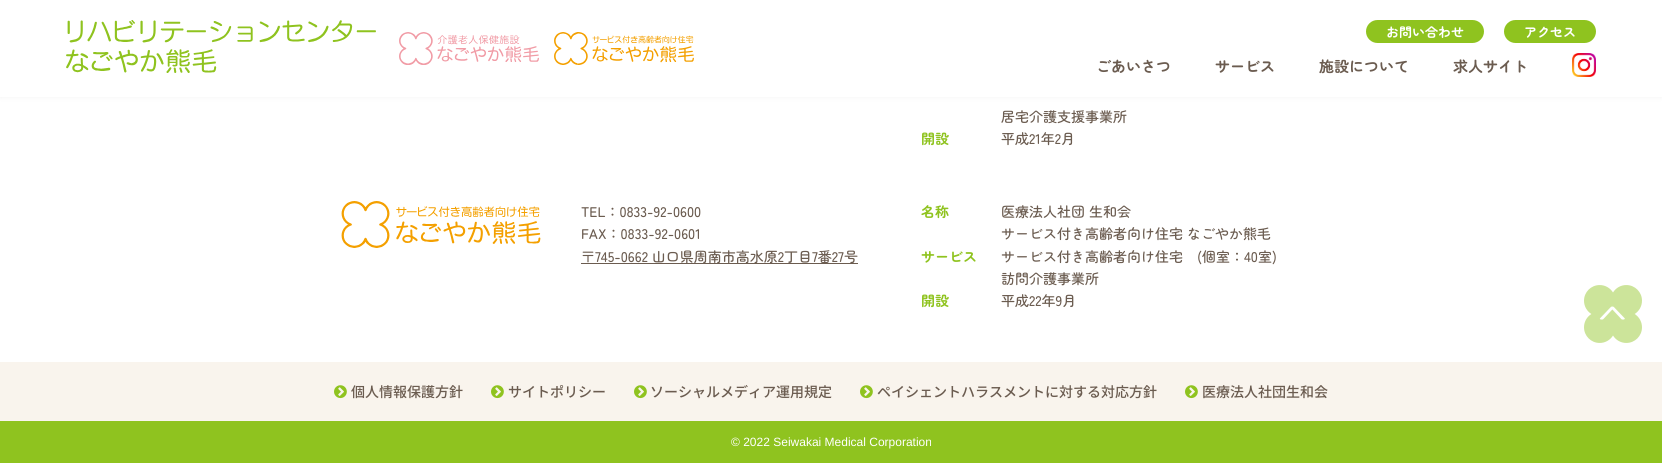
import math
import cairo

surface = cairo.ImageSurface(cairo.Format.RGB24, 1662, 463)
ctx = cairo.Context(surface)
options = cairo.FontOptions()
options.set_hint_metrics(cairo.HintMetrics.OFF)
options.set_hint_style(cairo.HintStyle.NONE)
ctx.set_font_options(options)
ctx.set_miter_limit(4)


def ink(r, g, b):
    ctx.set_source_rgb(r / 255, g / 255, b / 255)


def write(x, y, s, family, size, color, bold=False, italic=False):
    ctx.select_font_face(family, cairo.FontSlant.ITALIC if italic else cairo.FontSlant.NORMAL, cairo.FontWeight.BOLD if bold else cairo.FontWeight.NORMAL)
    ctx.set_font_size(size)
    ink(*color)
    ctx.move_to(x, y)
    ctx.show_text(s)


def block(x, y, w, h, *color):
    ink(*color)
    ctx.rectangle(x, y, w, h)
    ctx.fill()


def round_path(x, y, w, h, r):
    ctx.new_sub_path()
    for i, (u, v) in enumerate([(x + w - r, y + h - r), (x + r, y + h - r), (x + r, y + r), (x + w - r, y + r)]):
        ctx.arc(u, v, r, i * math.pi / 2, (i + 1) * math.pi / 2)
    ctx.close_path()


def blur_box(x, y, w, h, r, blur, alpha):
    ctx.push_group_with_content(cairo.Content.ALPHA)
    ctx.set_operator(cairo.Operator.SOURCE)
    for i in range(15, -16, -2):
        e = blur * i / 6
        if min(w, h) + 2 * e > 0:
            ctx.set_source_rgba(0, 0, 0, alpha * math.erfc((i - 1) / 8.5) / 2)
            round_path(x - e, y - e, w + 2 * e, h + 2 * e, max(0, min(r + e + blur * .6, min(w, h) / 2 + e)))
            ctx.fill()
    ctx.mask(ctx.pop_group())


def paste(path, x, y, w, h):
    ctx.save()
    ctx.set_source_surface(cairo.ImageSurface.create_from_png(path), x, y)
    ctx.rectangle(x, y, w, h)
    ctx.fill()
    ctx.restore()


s1 = dict(family="Zen Maru Gothic", size=13, color=(255, 255, 255), bold=True)
s2 = dict(family="Zen Maru Gothic", size=15, color=(107, 92, 80), bold=True)
s3 = dict(family="Zen Maru Gothic Medium", size=14, color=(107, 92, 80))
s4 = dict(family="Zen Maru Gothic", size=14, color=(143, 195, 31), bold=True)
s5 = dict(family="Noto Sans JP Medium", size=14, color=(107, 92, 80))
s6 = dict(family="Liberation Sans", size=12, color=(255, 255, 255))

ink(255, 255, 255)
ctx.paint()
ink(119, 119, 119)
blur_box(0, 0, 1662, 97, 0, 2.5, 0.1)
block(0, 0, 1662, 97, 255, 255, 255)
paste("pic1.png", 66, 20, 310, 53)
paste("pic2.png", 399, 32, 140, 33)
paste("pic3.png", 554, 32, 140, 33)
ink(143, 195, 31)
round_path(1366, 20, 118, 23, 11.5)
ctx.fill()
write(1386, 37, "お問い合わせ", **s1)
ink(143, 195, 31)
round_path(1504, 20, 92, 23, 11.5)
ctx.fill()
write(1524, 37, "アクセス", **s1)
write(1096, 72, "ごあいさつ", **s2)
write(1215, 72, "サービス", **s2)
write(1319, 72, "施設について", **s2)
write(1453, 72, "求人サイト", **s2)
paste("pic4.png", 1572, 53, 24, 24)
write(1001, 122, "居宅介護支援事業所", **s3)
write(921, 144, "開設", **s4)
write(1001, 144, "平成21年2月", **s3)
paste("pic5.png", 341, 201, 200, 47)
write(581, 217, "TEL：0833-92-0600", **s3)
write(581, 239, "FAX：0833-92-0601", **s3)
block(581, 263, 277, 1, 107, 92, 80)
write(581, 262, "〒745-0662 山口県周南市高水原2丁目7番27号", **s3)
write(921, 217, "名称", **s4)
write(1001, 217, "医療法人社団 生和会", **s3)
write(1001, 239, "サービス付き高齢者向け住宅 なごやか熊毛", **s3)
write(921, 262, "サービス", **s4)
write(1001, 262, "サービス付き高齢者向け住宅　(個室：40室)", **s3)
write(1001, 284, "訪問介護事業所", **s3)
write(921, 306, "開設", **s4)
write(1001, 306, "平成22年9月", **s3)
block(0, 362, 1662, 59, 249, 244, 237)
paste("pic6.png", 334, 385, 13, 14)
write(351, 397, "個人情報保護方針", **s5)
paste("pic6.png", 491, 385, 13, 14)
write(508, 397, "サイトポリシー", **s5)
paste("pic6.png", 634, 385, 13, 14)
write(650, 397, "ソーシャルメディア運用規定", **s5)
paste("pic6.png", 860, 385, 13, 14)
write(877, 397, "ペイシェントハラスメントに対する対応方針", **s5)
paste("pic6.png", 1185, 385, 13, 14)
write(1202, 397, "医療法人社団生和会", **s5)
block(0, 421, 1662, 42, 143, 195, 31)
write(731, 446, "© 2022 Seiwakai Medical Corporation", **s6)
paste("pic7.png", 1584, 285, 58, 58)
surface.write_to_png("screenshot.png")
